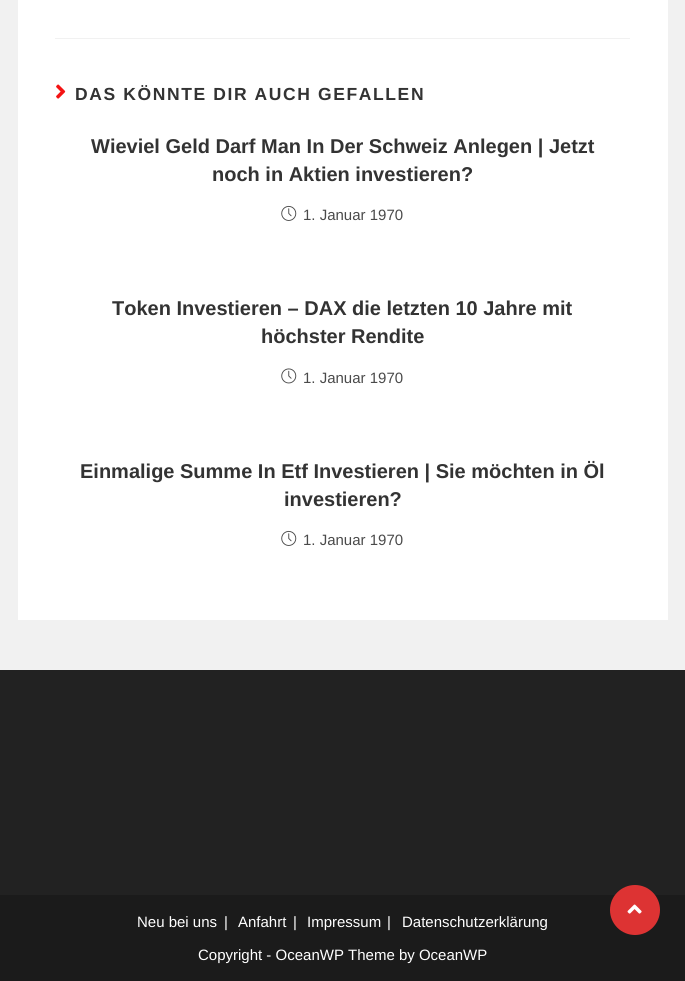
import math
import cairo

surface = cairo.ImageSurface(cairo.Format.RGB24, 685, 981)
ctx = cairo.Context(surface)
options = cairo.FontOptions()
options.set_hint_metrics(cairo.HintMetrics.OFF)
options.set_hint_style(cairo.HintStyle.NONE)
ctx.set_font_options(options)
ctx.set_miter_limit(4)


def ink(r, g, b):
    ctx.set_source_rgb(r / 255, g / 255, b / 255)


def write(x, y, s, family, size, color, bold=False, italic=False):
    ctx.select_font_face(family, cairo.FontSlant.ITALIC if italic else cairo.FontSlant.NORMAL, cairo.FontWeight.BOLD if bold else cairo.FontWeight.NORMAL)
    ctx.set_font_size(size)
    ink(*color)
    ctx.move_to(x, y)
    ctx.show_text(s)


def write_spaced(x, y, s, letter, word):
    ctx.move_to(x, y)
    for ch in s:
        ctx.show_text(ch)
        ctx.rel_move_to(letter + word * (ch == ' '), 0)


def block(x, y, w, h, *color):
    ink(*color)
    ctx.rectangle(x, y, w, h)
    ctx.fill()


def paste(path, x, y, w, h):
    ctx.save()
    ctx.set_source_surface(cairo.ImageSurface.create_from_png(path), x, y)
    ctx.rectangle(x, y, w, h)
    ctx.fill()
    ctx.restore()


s1 = dict(family="Liberation Sans", size=20, color=(51, 51, 51), bold=True)
s2 = dict(family="Liberation Sans", size=15, color=(74, 74, 74))
s3 = dict(family="Liberation Sans", size=15, color=(255, 255, 255))

ink(241, 241, 241)
ctx.paint()
block(18, 0, 650, 620, 255, 255, 255)
block(55, 38, 575, 1, 241, 241, 241)
paste("pic1.png", 56, 84, 10, 15)
ctx.select_font_face("Liberation Sans", cairo.FontSlant.NORMAL, cairo.FontWeight.BOLD)
ctx.set_font_size(17.5)
ink(51, 51, 51)
write_spaced(75, 100, "DAS KÖNNTE DIR AUCH GEFALLEN", 1.6, 0)
write(91, 153, "Wieviel Geld Darf Man In Der Schweiz Anlegen | Jetzt", **s1)
write(212, 181, "noch in Aktien investieren?", **s1)
paste("pic2.png", 281, 205, 16, 16)
write(303, 220, "1. Januar 1970", **s2)
write(112, 315, "Token Investieren – DAX die letzten 10 Jahre mit", **s1)
write(261, 343, "höchster Rendite", **s1)
paste("pic3.png", 281, 368, 16, 16)
write(303, 383, "1. Januar 1970", **s2)
write(80, 478, "Einmalige Summe In Etf Investieren | Sie möchten in Öl", **s1)
write(284, 506, "investieren?", **s1)
paste("pic2.png", 281, 530, 16, 16)
write(303, 545, "1. Januar 1970", **s2)
block(0, 670, 685, 225, 34, 34, 34)
block(0, 895, 685, 86, 27, 27, 27)
write(137, 927, "Neu bei uns", **s3)
write(224, 927, "|", **s3)
write(238, 927, "Anfahrt", **s3)
write(293, 927, "|", **s3)
write(307, 927, "Impressum", **s3)
write(387, 927, "|", **s3)
write(402, 927, "Datenschutzerklärung", **s3)
write(198, 960, "Copyright - OceanWP Theme by OceanWP", **s3)
ink(221, 51, 51)
ctx.new_path()
ctx.arc(635, 910, 25, 0, 2 * math.pi)
ctx.fill()
paste("pic4.png", 627, 904, 15, 10)
surface.write_to_png("screenshot.png")
